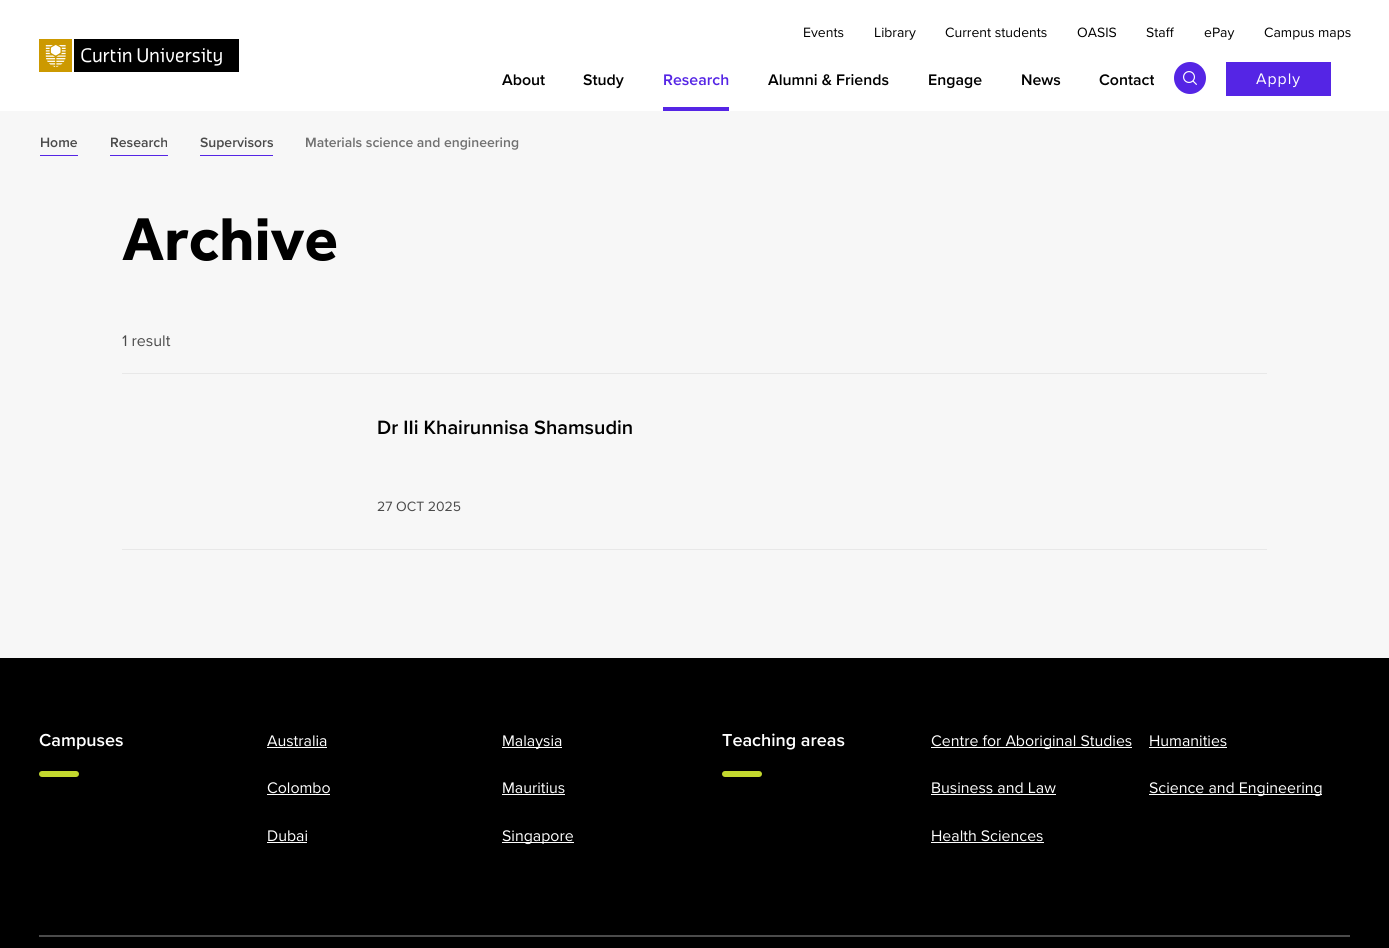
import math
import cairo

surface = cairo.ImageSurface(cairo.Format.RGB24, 1389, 948)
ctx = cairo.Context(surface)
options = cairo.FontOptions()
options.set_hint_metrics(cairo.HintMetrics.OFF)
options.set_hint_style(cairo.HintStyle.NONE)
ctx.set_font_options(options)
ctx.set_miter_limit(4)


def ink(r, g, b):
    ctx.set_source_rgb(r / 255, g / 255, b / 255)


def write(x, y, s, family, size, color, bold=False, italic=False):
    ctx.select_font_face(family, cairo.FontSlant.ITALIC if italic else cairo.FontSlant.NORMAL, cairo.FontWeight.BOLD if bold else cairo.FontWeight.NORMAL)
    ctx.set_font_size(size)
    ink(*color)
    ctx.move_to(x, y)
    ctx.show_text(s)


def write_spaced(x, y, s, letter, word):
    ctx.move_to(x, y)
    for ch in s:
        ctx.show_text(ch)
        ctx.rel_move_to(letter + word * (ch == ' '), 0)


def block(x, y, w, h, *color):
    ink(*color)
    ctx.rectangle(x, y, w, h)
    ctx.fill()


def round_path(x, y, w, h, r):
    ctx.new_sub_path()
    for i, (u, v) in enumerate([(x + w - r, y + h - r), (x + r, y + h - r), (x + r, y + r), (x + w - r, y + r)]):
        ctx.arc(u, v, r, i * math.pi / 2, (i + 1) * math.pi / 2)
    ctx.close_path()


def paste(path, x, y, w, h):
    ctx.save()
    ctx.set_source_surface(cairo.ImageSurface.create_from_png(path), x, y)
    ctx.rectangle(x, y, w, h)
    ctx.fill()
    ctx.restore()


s1 = dict(family="Proxima Nova", size=14, color=(0, 0, 0))
s2 = dict(family="Proxima Nova SemiBold", size=15.9, color=(0, 0, 0))
s3 = dict(family="Proxima Nova SemiBold", size=15.9, color=(85, 37, 229))
s4 = dict(family="Proxima Nova SemiBold", size=14, color=(75, 75, 75))
s5 = dict(family="Proxima Nova SemiBold", size=14, color=(113, 113, 113))
s6 = dict(family="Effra", size=62.5, color=(0, 0, 0), bold=True)
s7 = dict(family="Proxima Nova", size=16, color=(75, 75, 75))
s8 = dict(family="Proxima Nova SemiBold", size=20, color=(0, 0, 0))
s9 = dict(family="Proxima Nova", size=14, color=(75, 75, 75))
s10 = dict(family="Proxima Nova SemiBold", size=18, color=(255, 255, 255))
s11 = dict(family="Proxima Nova", size=15.9, color=(255, 255, 255))

ink(247, 247, 247)
ctx.paint()
block(0, 0, 1389, 111, 255, 255, 255)
paste("pic1.png", 39, 39, 200, 33)
write(803, 37, "Events", **s1)
write(874, 37, "Library", **s1)
write(945, 37, "Current students", **s1)
write(1077, 37, "OASIS", **s1)
write(1146, 37, "Staff", **s1)
write(1204, 37, "ePay", **s1)
write(1264, 37, "Campus maps", **s1)
write(502, 85, "About", **s2)
write(583, 85, "Study", **s2)
write(663, 85, "Research", **s3)
block(663, 107, 66, 4, 85, 37, 229)
write(768, 85, "Alumni & Friends", **s2)
write(928, 85, "Engage", **s2)
write(1021, 85, "News", **s2)
write(1099, 85, "Contact", **s2)
ink(85, 37, 229)
ctx.new_path()
ctx.arc(1190, 78, 16, 0, 2 * math.pi)
ctx.fill()
paste("pic2.png", 1183, 71, 14, 14)
block(1226, 62, 105, 34, 85, 37, 229)
ctx.select_font_face("Proxima Nova")
ink(255, 255, 255)
write_spaced(1256, 84, "Apply", 1, 0)
write(40, 147, "Home", **s4)
block(40, 155, 38, 1, 85, 37, 229)
write(110, 147, "Research", **s4)
block(110, 155, 58, 1, 85, 37, 229)
write(200, 147, "Supervisors", **s4)
block(200, 155, 73, 1, 85, 37, 229)
write(305, 147, "Materials science and engineering", **s5)
block(122, 373, 1145, 1, 232, 232, 232)
write(122, 260, "Archive", **s6)
write(122, 346, "1 result", **s7)
block(122, 549, 1145, 1, 232, 232, 232)
write(377, 434, "Dr IIi Khairunnisa Shamsudin", **s8)
write(377, 511, "27 OCT 2025", **s9)
block(0, 658, 1389, 290, 0, 0, 0)
write(39, 746, "Campuses", **s10)
ink(195, 216, 46)
round_path(39, 771, 40, 6, 3)
ctx.fill()
write(267, 746, "Australia", **s11)
block(267, 747, 60, 1, 255, 255, 255)
block(502, 747, 60, 1, 255, 255, 255)
write(502, 746, "Malaysia", **s11)
write(267, 793, "Colombo", **s11)
block(267, 794, 63, 1, 255, 255, 255)
write(502, 793, "Mauritius", **s11)
block(502, 794, 63, 1, 255, 255, 255)
write(267, 841, "Dubai", **s11)
block(267, 842, 40, 1, 255, 255, 255)
block(502, 842, 72, 1, 255, 255, 255)
write(502, 841, "Singapore", **s11)
write(722, 746, "Teaching areas", **s10)
ink(195, 216, 46)
round_path(722, 771, 40, 6, 3)
ctx.fill()
block(931, 747, 201, 1, 255, 255, 255)
write(931, 746, "Centre for Aboriginal Studies", **s11)
write(1149, 746, "Humanities", **s11)
block(1149, 747, 78, 1, 255, 255, 255)
write(931, 793, "Business and Law", **s11)
block(931, 794, 125, 1, 255, 255, 255)
block(1149, 794, 173, 1, 255, 255, 255)
write(1149, 793, "Science and Engineering", **s11)
write(931, 841, "Health Sciences", **s11)
block(931, 842, 113, 1, 255, 255, 255)
block(39, 935, 1311, 2, 75, 75, 75)
surface.write_to_png("screenshot.png")
